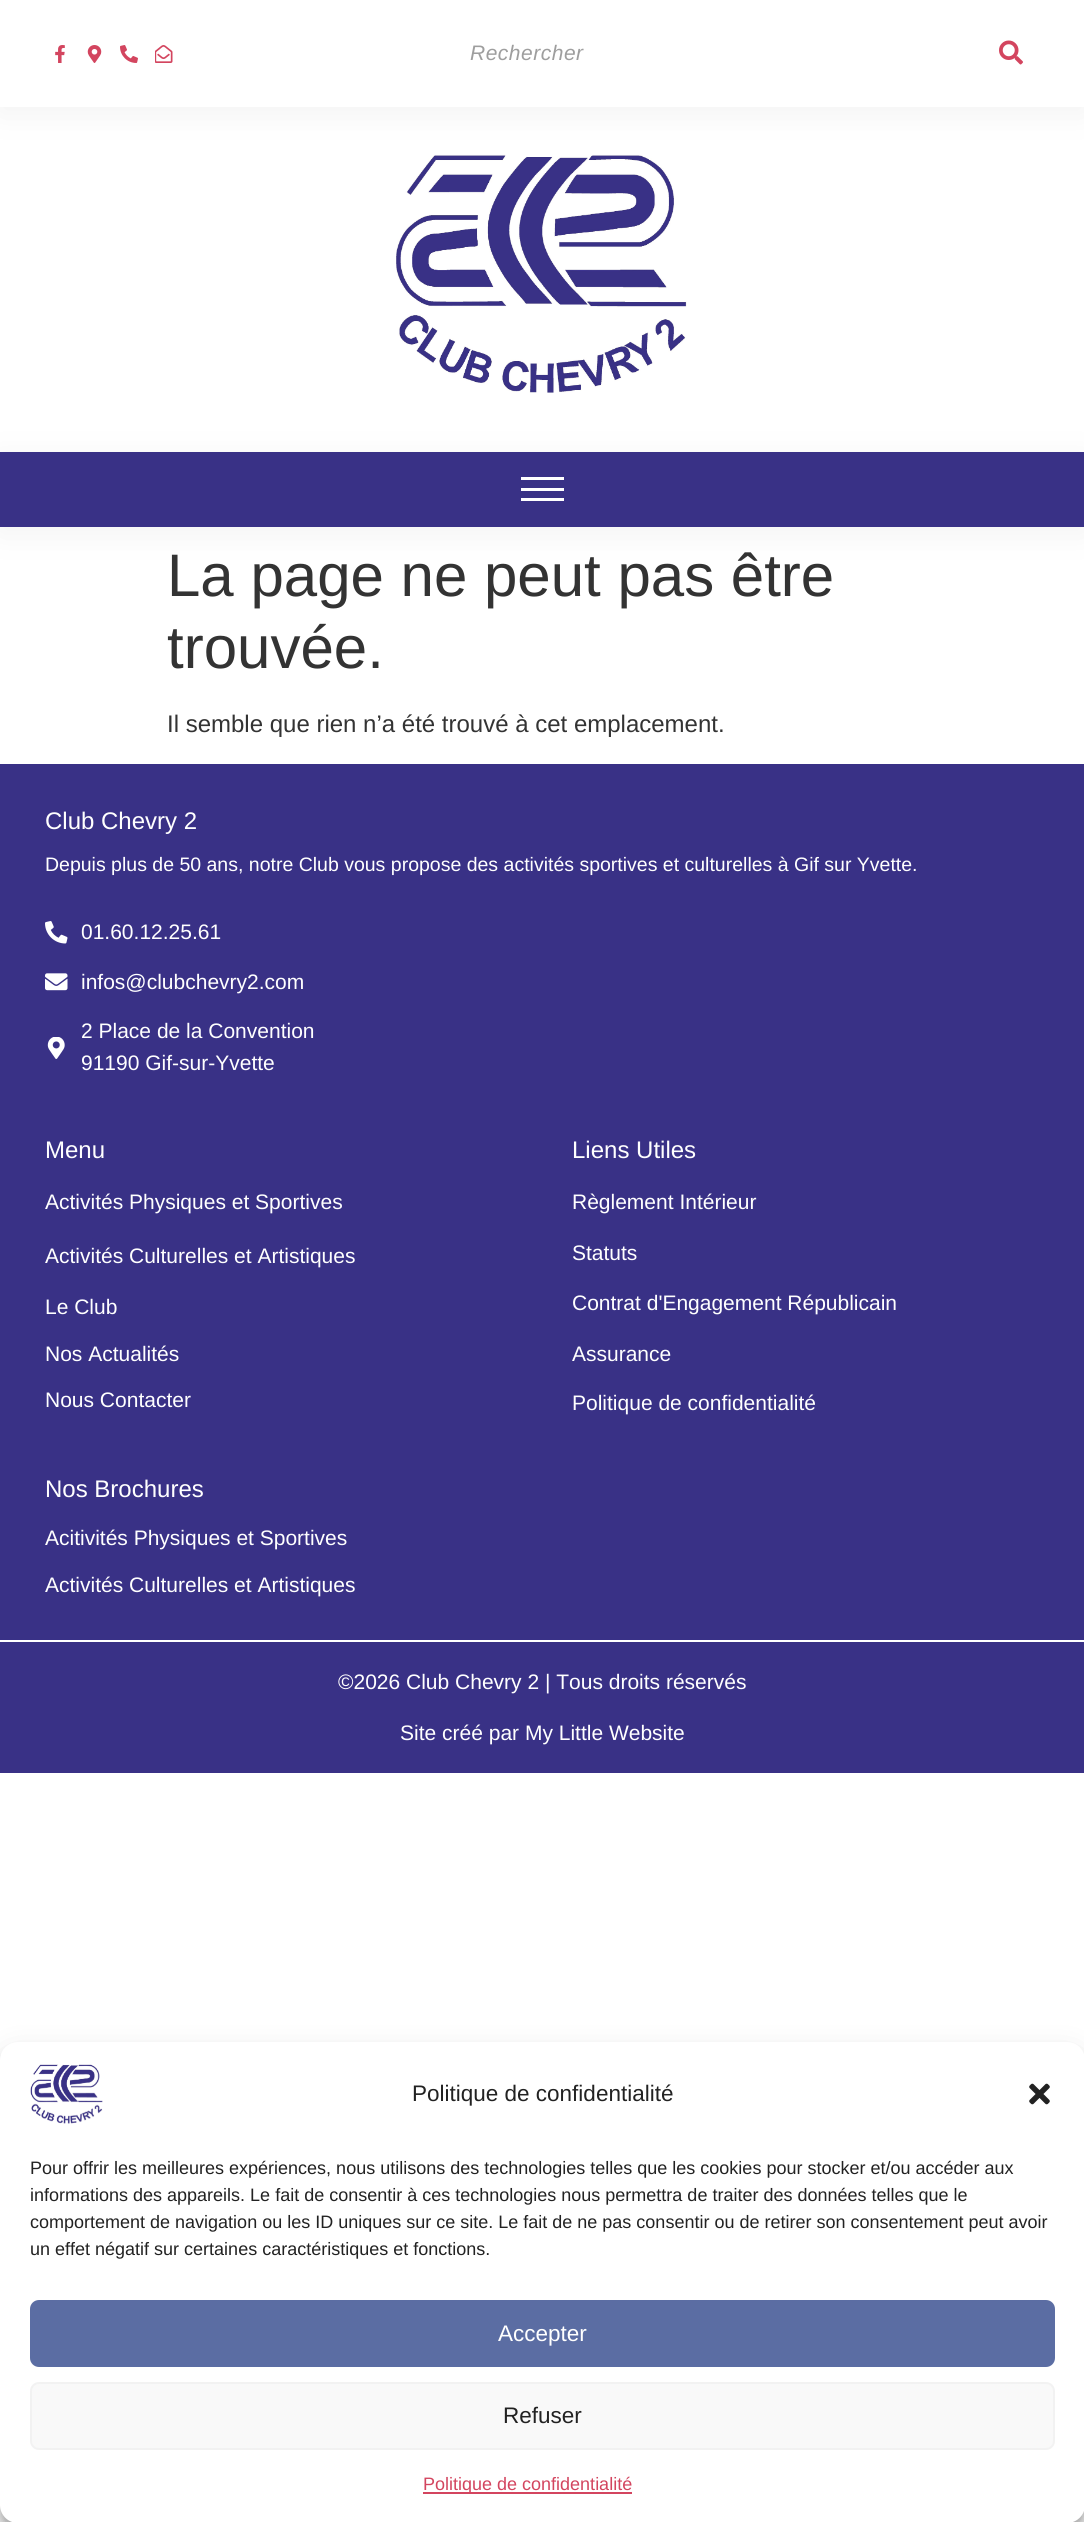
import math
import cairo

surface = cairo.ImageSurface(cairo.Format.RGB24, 1084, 2522)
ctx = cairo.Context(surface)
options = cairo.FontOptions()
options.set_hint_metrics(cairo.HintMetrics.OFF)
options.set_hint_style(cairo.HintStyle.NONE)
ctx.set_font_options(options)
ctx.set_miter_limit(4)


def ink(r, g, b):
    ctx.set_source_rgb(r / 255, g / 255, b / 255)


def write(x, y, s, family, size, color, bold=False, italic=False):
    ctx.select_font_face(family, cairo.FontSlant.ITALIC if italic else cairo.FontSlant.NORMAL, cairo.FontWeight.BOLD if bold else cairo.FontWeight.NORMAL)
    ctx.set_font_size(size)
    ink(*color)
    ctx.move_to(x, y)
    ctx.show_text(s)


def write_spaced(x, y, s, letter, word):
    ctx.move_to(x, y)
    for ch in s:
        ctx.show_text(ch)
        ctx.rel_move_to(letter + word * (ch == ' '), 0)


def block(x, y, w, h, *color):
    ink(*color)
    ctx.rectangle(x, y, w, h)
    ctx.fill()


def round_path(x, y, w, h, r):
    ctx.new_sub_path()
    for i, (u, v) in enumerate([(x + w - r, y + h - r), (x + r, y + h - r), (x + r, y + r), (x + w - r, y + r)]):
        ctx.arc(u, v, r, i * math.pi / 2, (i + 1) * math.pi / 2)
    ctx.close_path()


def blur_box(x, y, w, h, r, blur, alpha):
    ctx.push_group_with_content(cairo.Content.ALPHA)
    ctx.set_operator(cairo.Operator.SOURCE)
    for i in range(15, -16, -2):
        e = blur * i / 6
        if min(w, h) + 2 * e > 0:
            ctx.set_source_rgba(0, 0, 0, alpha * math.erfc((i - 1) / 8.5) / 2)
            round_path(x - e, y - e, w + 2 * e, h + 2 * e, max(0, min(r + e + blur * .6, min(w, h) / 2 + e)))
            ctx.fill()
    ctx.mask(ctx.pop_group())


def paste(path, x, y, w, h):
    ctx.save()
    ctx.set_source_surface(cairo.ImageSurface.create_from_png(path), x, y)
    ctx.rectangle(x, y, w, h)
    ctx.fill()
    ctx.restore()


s1 = dict(family="Liberation Sans", size=60, color=(51, 51, 51))
s2 = dict(family="Liberation Sans", size=24, color=(51, 51, 51))
s3 = dict(family="Liberation Sans", size=24, color=(255, 255, 255))
s4 = dict(family="Liberation Sans", size=19.5, color=(255, 255, 255))
s5 = dict(family="Liberation Sans", size=21, color=(255, 255, 255))
s6 = dict(family="Liberation Sans", size=22.5, color=(34, 34, 34))
s7 = dict(family="Liberation Sans", size=18, color=(34, 34, 34))
s8 = dict(family="Liberation Sans", size=22.5, color=(255, 255, 255))
s9 = dict(family="Liberation Sans", size=18, color=(211, 69, 95))

ink(255, 255, 255)
ctx.paint()
ink(230, 230, 230)
blur_box(0, 6, 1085, 107, 0, 15, 0.5)
block(0, 0, 1084, 107, 255, 255, 255)
paste("pic1.png", 55, 45, 10, 18)
paste("pic2.png", 87, 45, 15, 18)
paste("pic3.png", 120, 45, 18, 18)
paste("pic4.png", 155, 45, 18, 18)
ctx.select_font_face("Liberation Sans", cairo.FontSlant.ITALIC)
ctx.set_font_size(21)
ink(158, 158, 158)
write_spaced(470, 60, "Rechercher", 0.5, 0)
paste("pic5.png", 999, 40, 24, 25)
paste("pic6.png", 396, 154, 291, 239)
ink(230, 230, 230)
blur_box(0, 458, 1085, 75, 0, 15, 0.5)
block(0, 452, 1084, 75, 57, 49, 134)
block(521, 477, 43, 3, 255, 255, 255)
block(521, 488, 43, 3, 255, 255, 255)
block(521, 498, 43, 3, 255, 255, 255)
write(167, 596, "La page ne peut pas être", **s1)
write(167, 668, "trouvée.", **s1)
write(167, 732, "Il semble que rien n’a été trouvé à cet emplacement.", **s2)
block(0, 764, 1084, 876, 57, 49, 134)
write(45, 829, "Club Chevry 2", **s3)
write(45, 871, "Depuis plus de 50 ans, notre Club vous propose des activités sportives et culturelles à Gif sur Yvette.", **s4)
paste("pic7.png", 45, 921, 23, 23)
write(81, 939, "01.60.12.25.61", **s5)
paste("pic8.png", 45, 973, 23, 18)
write(81, 989, "infos@clubchevry2.com", **s5)
paste("pic9.png", 47, 1037, 18, 22)
write(81, 1038, "2 Place de la Convention", **s5)
write(81, 1070, "91190 Gif-sur-Yvette", **s5)
write(45, 1158, "Menu", **s3)
write(45, 1209, "Activités Physiques et Sportives", **s5)
write(45, 1263, "Activités Culturelles et Artistiques", **s5)
write(45, 1314, "Le Club", **s5)
write(45, 1361, "Nos Actualités", **s5)
write(45, 1407, "Nous Contacter", **s5)
write(572, 1158, "Liens Utiles", **s3)
write(572, 1209, "Règlement Intérieur", **s5)
write(572, 1260, "Statuts", **s5)
write(572, 1310, "Contrat d'Engagement Républicain", **s5)
write(572, 1361, "Assurance", **s5)
write(572, 1410, "Politique de confidentialité", **s5)
write(45, 1497, "Nos Brochures", **s3)
write(45, 1545, "Acitivités Physiques et Sportives", **s5)
write(45, 1592, "Activités Culturelles et Artistiques", **s5)
block(0, 1642, 1084, 131, 57, 49, 134)
write(338, 1689, "©2026 Club Chevry 2 | Tous droits réservés", **s5)
write(400, 1740, "Site créé par My Little Website", **s5)
ink(0, 0, 0)
blur_box(0, 2051, 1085, 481, 18, 4.5, 0.23)
blur_box(0, 2057, 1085, 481, 18, 15, 0.19)
ink(255, 255, 255)
round_path(0, 2042, 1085, 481, 18)
ctx.fill()
paste("pic10.png", 30, 2064, 73, 60)
write(412, 2101, "Politique de confidentialité", **s6)
paste("pic11.png", 1029, 2083, 21, 22)
write(30, 2174, "Pour offrir les meilleures expériences, nous utilisons des technologies telles que les cookies pour stocker et/ou accéder aux", **s7)
write(30, 2201, "informations des appareils. Le fait de consentir à ces technologies nous permettra de traiter des données telles que le", **s7)
write(30, 2228, "comportement de navigation ou les ID uniques sur ce site. Le fait de ne pas consentir ou de retirer son consentement peut avoir", **s7)
write(30, 2255, "un effet négatif sur certaines caractéristiques et fonctions.", **s7)
ink(91, 109, 163)
round_path(31, 2301, 1023, 65, 8)
ctx.fill_preserve()
ctx.stroke()
write(498, 2341, "Accepter", **s8)
ink(249, 249, 249)
round_path(31, 2383, 1023, 66, 8)
ctx.fill_preserve()
ink(242, 242, 242)
ctx.stroke()
write(503, 2423, "Refuser", **s6)
block(423, 2492, 209, 2, 211, 69, 95)
write(423, 2490, "Politique de confidentialité", **s9)
surface.write_to_png("screenshot.png")
